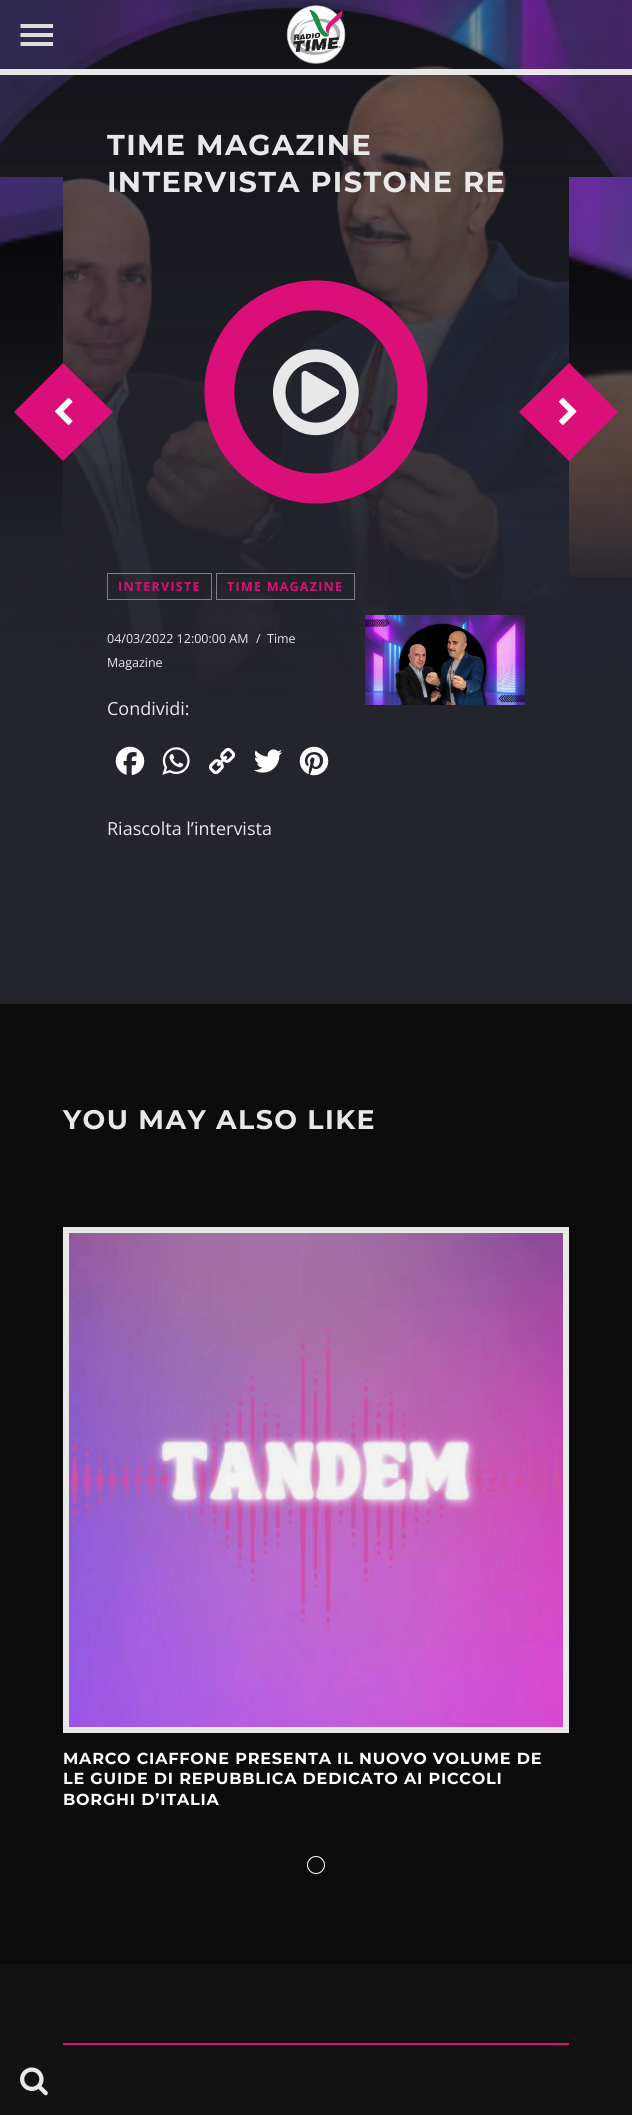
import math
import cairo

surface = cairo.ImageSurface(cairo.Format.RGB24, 632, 2115)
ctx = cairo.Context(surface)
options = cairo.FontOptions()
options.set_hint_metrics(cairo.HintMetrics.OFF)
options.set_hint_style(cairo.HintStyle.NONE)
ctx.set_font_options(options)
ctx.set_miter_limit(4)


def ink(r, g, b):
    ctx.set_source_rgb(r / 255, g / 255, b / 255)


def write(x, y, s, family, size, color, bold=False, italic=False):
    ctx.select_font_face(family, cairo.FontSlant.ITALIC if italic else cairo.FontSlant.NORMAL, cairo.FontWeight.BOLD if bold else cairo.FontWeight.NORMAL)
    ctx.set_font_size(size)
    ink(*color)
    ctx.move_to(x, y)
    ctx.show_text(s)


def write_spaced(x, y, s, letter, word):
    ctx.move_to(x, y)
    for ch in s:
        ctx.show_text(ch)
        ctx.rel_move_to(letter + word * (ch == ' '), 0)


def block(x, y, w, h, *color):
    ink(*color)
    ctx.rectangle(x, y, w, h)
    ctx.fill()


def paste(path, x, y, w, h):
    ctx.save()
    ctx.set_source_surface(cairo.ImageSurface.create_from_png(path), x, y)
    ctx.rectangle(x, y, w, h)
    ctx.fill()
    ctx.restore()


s1 = dict(family="Open Sans", size=12.5, color=(232, 232, 232))
s2 = dict(family="Open Sans", size=18, color=(232, 232, 232))

ink(36, 36, 45)
ctx.paint()
paste("pic1.png", 0, 0, 632, 706)
gradient = cairo.LinearGradient(316, -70, 316, 706)
gradient.add_color_stop_rgba(0, 0.141, 0.141, 0.176, 0)
gradient.add_color_stop_rgba(1, 0.141, 0.141, 0.176, 0.6)
ctx.set_source(gradient)
ctx.rectangle(0, 0, 632, 706)
ctx.fill()
gradient = cairo.LinearGradient(316, -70, 316, 730)
gradient.add_color_stop_rgba(0, 0.141, 0.141, 0.176, 0)
gradient.add_color_stop_rgba(1, 0.141, 0.141, 0.176, 1)
ctx.set_source(gradient)
ctx.rectangle(0, 0, 632, 706)
ctx.fill()
ink(222, 222, 222)
ctx.new_path()
ctx.move_to(20.5, 46)
ctx.line_to(53, 46)
ctx.line_to(53, 42)
ctx.line_to(20.5, 42)
ctx.close_path()
ctx.move_to(20.5, 37)
ctx.line_to(53, 37)
ctx.line_to(53, 33)
ctx.line_to(20.5, 33)
ctx.close_path()
ctx.move_to(20.5, 24)
ctx.line_to(20.5, 28)
ctx.line_to(53, 28)
ctx.line_to(53, 24)
ctx.close_path()
ctx.fill()
paste("pic2.png", 286, 5, 60, 59)
block(0, 1964, 632, 151, 18, 18, 18)
paste("pic3.png", 20, 2067, 28, 29)
block(0, 69, 632, 6, 232, 232, 232)
paste("pic4.png", 0, 177, 63, 400)
gradient = cairo.LinearGradient(-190, 117, -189, 597)
gradient.add_color_stop_rgba(0, 0.141, 0.141, 0.176, 0)
gradient.add_color_stop_rgba(1, 0.141, 0.141, 0.176, 1)
ctx.set_source(gradient)
ctx.rectangle(0, 177, 63, 400)
ctx.fill()
ink(218, 16, 120)
ctx.new_path()
ctx.move_to(63, 363)
ctx.line_to(113, 412)
ctx.line_to(63, 461)
ctx.line_to(14, 412)
ctx.close_path()
ctx.fill()
paste("pic5.png", 55, 397, 18, 28)
ctx.select_font_face("Montserrat Thin")
ctx.set_font_size(28.75)
ink(232, 232, 232)
write_spaced(107, 155, "TIME MAGAZINE", 1.4, 0)
write_spaced(107, 192, "INTERVISTA PISTONE RE", 1.4, 0)
ctx.set_source_rgba(0.141, 0.141, 0.176, 0.15)
ctx.new_path()
ctx.move_to(395, 313)
ctx.curve_to(438, 356, 438, 427, 395, 471)
ctx.curve_to(351, 514, 281, 514, 237, 471)
ctx.curve_to(193, 427, 193, 356, 237, 313)
ctx.curve_to(281, 269, 351, 269, 395, 313)
ctx.close_path()
ctx.fill()
ctx.new_path()
ctx.move_to(384.5, 323.5)
ctx.curve_to(422, 361, 422, 422.5, 384.5, 460)
ctx.curve_to(346.5, 498, 285.5, 498, 247.5, 460)
ctx.curve_to(210, 422.5, 210, 361, 247.5, 323.5)
ctx.curve_to(285.5, 286, 346.5, 286, 384.5, 323.5)
ctx.close_path()
ink(218, 16, 120)
ctx.set_line_width(30)
ctx.stroke()
paste("pic6.png", 273, 349, 86, 87)
ctx.rectangle(107.5, 573.5, 104, 26)
ink(128, 128, 128)
ctx.set_line_width(1)
ctx.stroke()
ctx.select_font_face("Open Sans", cairo.FontSlant.NORMAL, cairo.FontWeight.BOLD)
ctx.set_font_size(12.5)
ink(218, 16, 120)
write_spaced(118, 591, "INTERVISTE", 1.25, 0)
ctx.rectangle(216.5, 573.5, 138, 26)
ink(128, 128, 128)
ctx.stroke()
ink(218, 16, 120)
write_spaced(227, 591, "TIME MAGAZINE", 1.25, 0)
write(107, 643, "04/03/2022 12:00:00 AM", **s1)
write(256, 643, "/", **s1)
write(267, 643, "Time", **s1)
write(107, 667, "Magazine", **s1)
write(107, 715, "Condividi:", **s2)
paste("pic7.png", 115, 746, 30, 30)
paste("pic8.png", 162, 747, 28, 28)
paste("pic9.png", 208, 747, 28, 28)
paste("pic10.png", 254, 749, 29, 24)
paste("pic11.png", 299, 746, 30, 30)
write(107, 835, "Riascolta l’intervista", **s2)
paste("pic12.png", 365, 615, 160, 90)
paste("pic13.png", 569, 177, 63, 400)
gradient = cairo.LinearGradient(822, 117, 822, 597)
gradient.add_color_stop_rgba(0, 0.141, 0.141, 0.176, 0)
gradient.add_color_stop_rgba(1, 0.141, 0.141, 0.176, 1)
ctx.set_source(gradient)
ctx.rectangle(569, 142, 63, 448)
ctx.fill()
ink(218, 16, 120)
ctx.new_path()
ctx.move_to(569, 363)
ctx.line_to(618, 412)
ctx.line_to(569, 461)
ctx.line_to(519, 412)
ctx.close_path()
ctx.fill()
paste("pic14.png", 559, 397, 18, 28)
block(0, 1004, 632, 960, 12, 12, 12)
ctx.select_font_face("Montserrat Thin")
ctx.set_font_size(26.9)
ink(232, 232, 232)
write_spaced(63, 1129, "YOU MAY ALSO LIKE", 1.4, 0)
paste("pic15.png", 69, 1233, 494, 494)
ctx.rectangle(66, 1230, 500, 500)
ctx.set_line_width(6)
ctx.stroke()
ctx.set_font_size(16)
ink(255, 255, 255)
write_spaced(63, 1764, "MARCO CIAFFONE PRESENTA IL NUOVO VOLUME DE", 0.8, 0)
write_spaced(63, 1784, "LE GUIDE DI REPUBBLICA DEDICATO AI PICCOLI", 0.8, 0)
write_spaced(63, 1805, "BORGHI D’ITALIA", 0.8, 0)
ctx.new_path()
ctx.arc(316, 1865, 8.5, 0, 2 * math.pi)
ctx.set_line_width(1)
ctx.stroke()
block(63, 2043, 506, 2, 218, 16, 120)
surface.write_to_png("screenshot.png")
